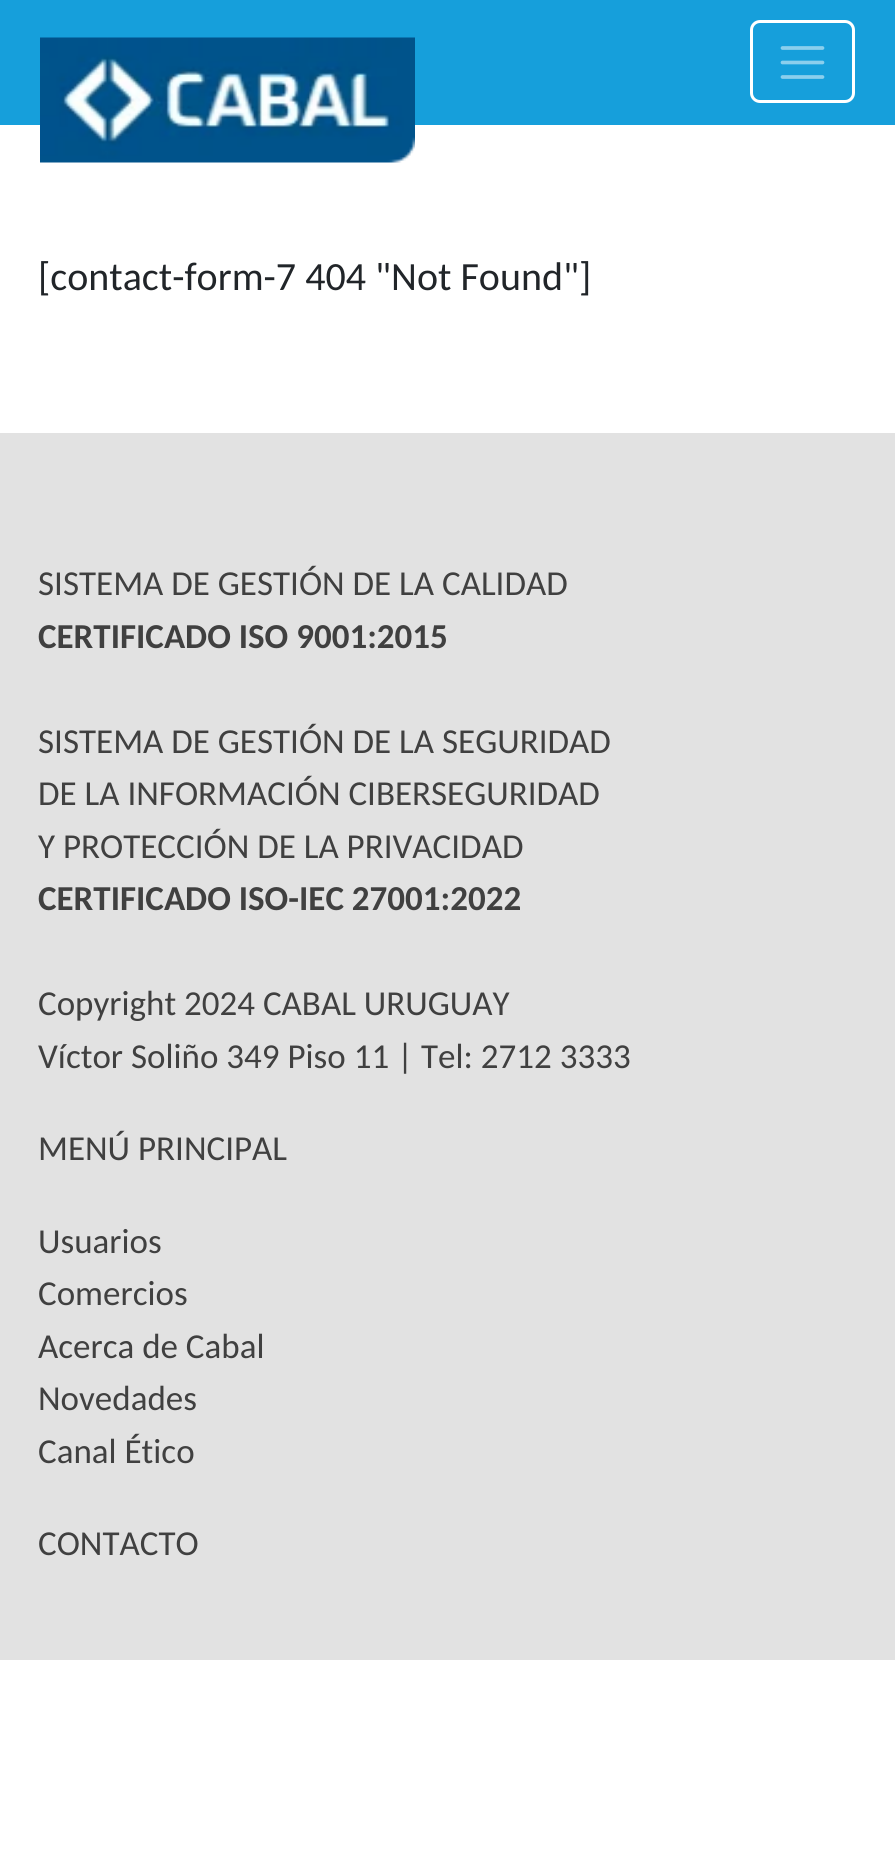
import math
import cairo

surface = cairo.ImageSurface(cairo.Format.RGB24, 895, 1862)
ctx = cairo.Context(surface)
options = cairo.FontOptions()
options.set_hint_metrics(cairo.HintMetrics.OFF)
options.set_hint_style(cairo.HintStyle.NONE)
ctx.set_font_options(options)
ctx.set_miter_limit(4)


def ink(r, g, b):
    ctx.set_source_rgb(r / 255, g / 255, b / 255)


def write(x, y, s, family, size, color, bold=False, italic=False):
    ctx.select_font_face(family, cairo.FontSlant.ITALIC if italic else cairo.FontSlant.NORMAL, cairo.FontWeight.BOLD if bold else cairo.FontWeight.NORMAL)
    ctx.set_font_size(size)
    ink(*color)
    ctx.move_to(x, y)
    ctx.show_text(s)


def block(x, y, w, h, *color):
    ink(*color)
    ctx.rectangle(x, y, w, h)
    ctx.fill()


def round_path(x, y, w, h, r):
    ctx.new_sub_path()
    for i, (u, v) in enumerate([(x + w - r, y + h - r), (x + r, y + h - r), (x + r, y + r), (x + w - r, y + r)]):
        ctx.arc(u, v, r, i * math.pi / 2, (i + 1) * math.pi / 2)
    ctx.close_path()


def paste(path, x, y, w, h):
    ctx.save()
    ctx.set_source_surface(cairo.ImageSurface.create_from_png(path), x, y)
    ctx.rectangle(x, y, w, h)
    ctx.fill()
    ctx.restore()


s1 = dict(family="Carlito", size=40, color=(33, 37, 41))
s2 = dict(family="Carlito", size=35, color=(64, 64, 64))
s3 = dict(family="Carlito", size=35, color=(64, 64, 64), bold=True)

ink(255, 255, 255)
ctx.paint()
block(0, 0, 895, 125, 22, 159, 219)
paste("pic1.png", 40, 37, 375, 126)
round_path(751.5, 21.5, 102, 80, 8.5)
ink(255, 255, 255)
ctx.set_line_width(3)
ctx.stroke()
ctx.new_path()
ctx.move_to(782.5, 48)
ctx.line_to(822.5, 48)
ctx.move_to(782.5, 62.5)
ctx.line_to(822.5, 62.5)
ctx.move_to(782.5, 77)
ctx.line_to(822.5, 77)
ink(139, 207, 237)
ctx.set_line_width(3.7)
ctx.set_line_cap(cairo.LineCap.ROUND)
ctx.stroke()
write(38, 290, "[contact-form-7 404 \"Not Found\"]", **s1)
block(0, 433, 895, 1227, 226, 226, 226)
write(38, 595, "SISTEMA DE GESTIÓN DE LA CALIDAD", **s2)
write(38, 648, "CERTIFICADO ISO 9001:2015", **s3)
write(38, 753, "SISTEMA DE GESTIÓN DE LA SEGURIDAD", **s2)
write(38, 805, "DE LA INFORMACIÓN CIBERSEGURIDAD", **s2)
write(38, 858, "Y PROTECCIÓN DE LA PRIVACIDAD", **s2)
write(38, 910, "CERTIFICADO ISO-IEC 27001:2022", **s3)
write(38, 1015, "Copyright 2024 CABAL URUGUAY", **s2)
write(38, 1068, "Víctor Soliño 349 Piso 11 | Tel: 2712 3333", **s2)
write(38, 1160, "MENÚ PRINCIPAL", **s2)
write(38, 1253, "Usuarios", **s2)
write(38, 1305, "Comercios", **s2)
write(38, 1358, "Acerca de Cabal", **s2)
write(38, 1410, "Novedades", **s2)
write(38, 1463, "Canal Ético", **s2)
write(38, 1555, "CONTACTO", **s2)
surface.write_to_png("screenshot.png")
